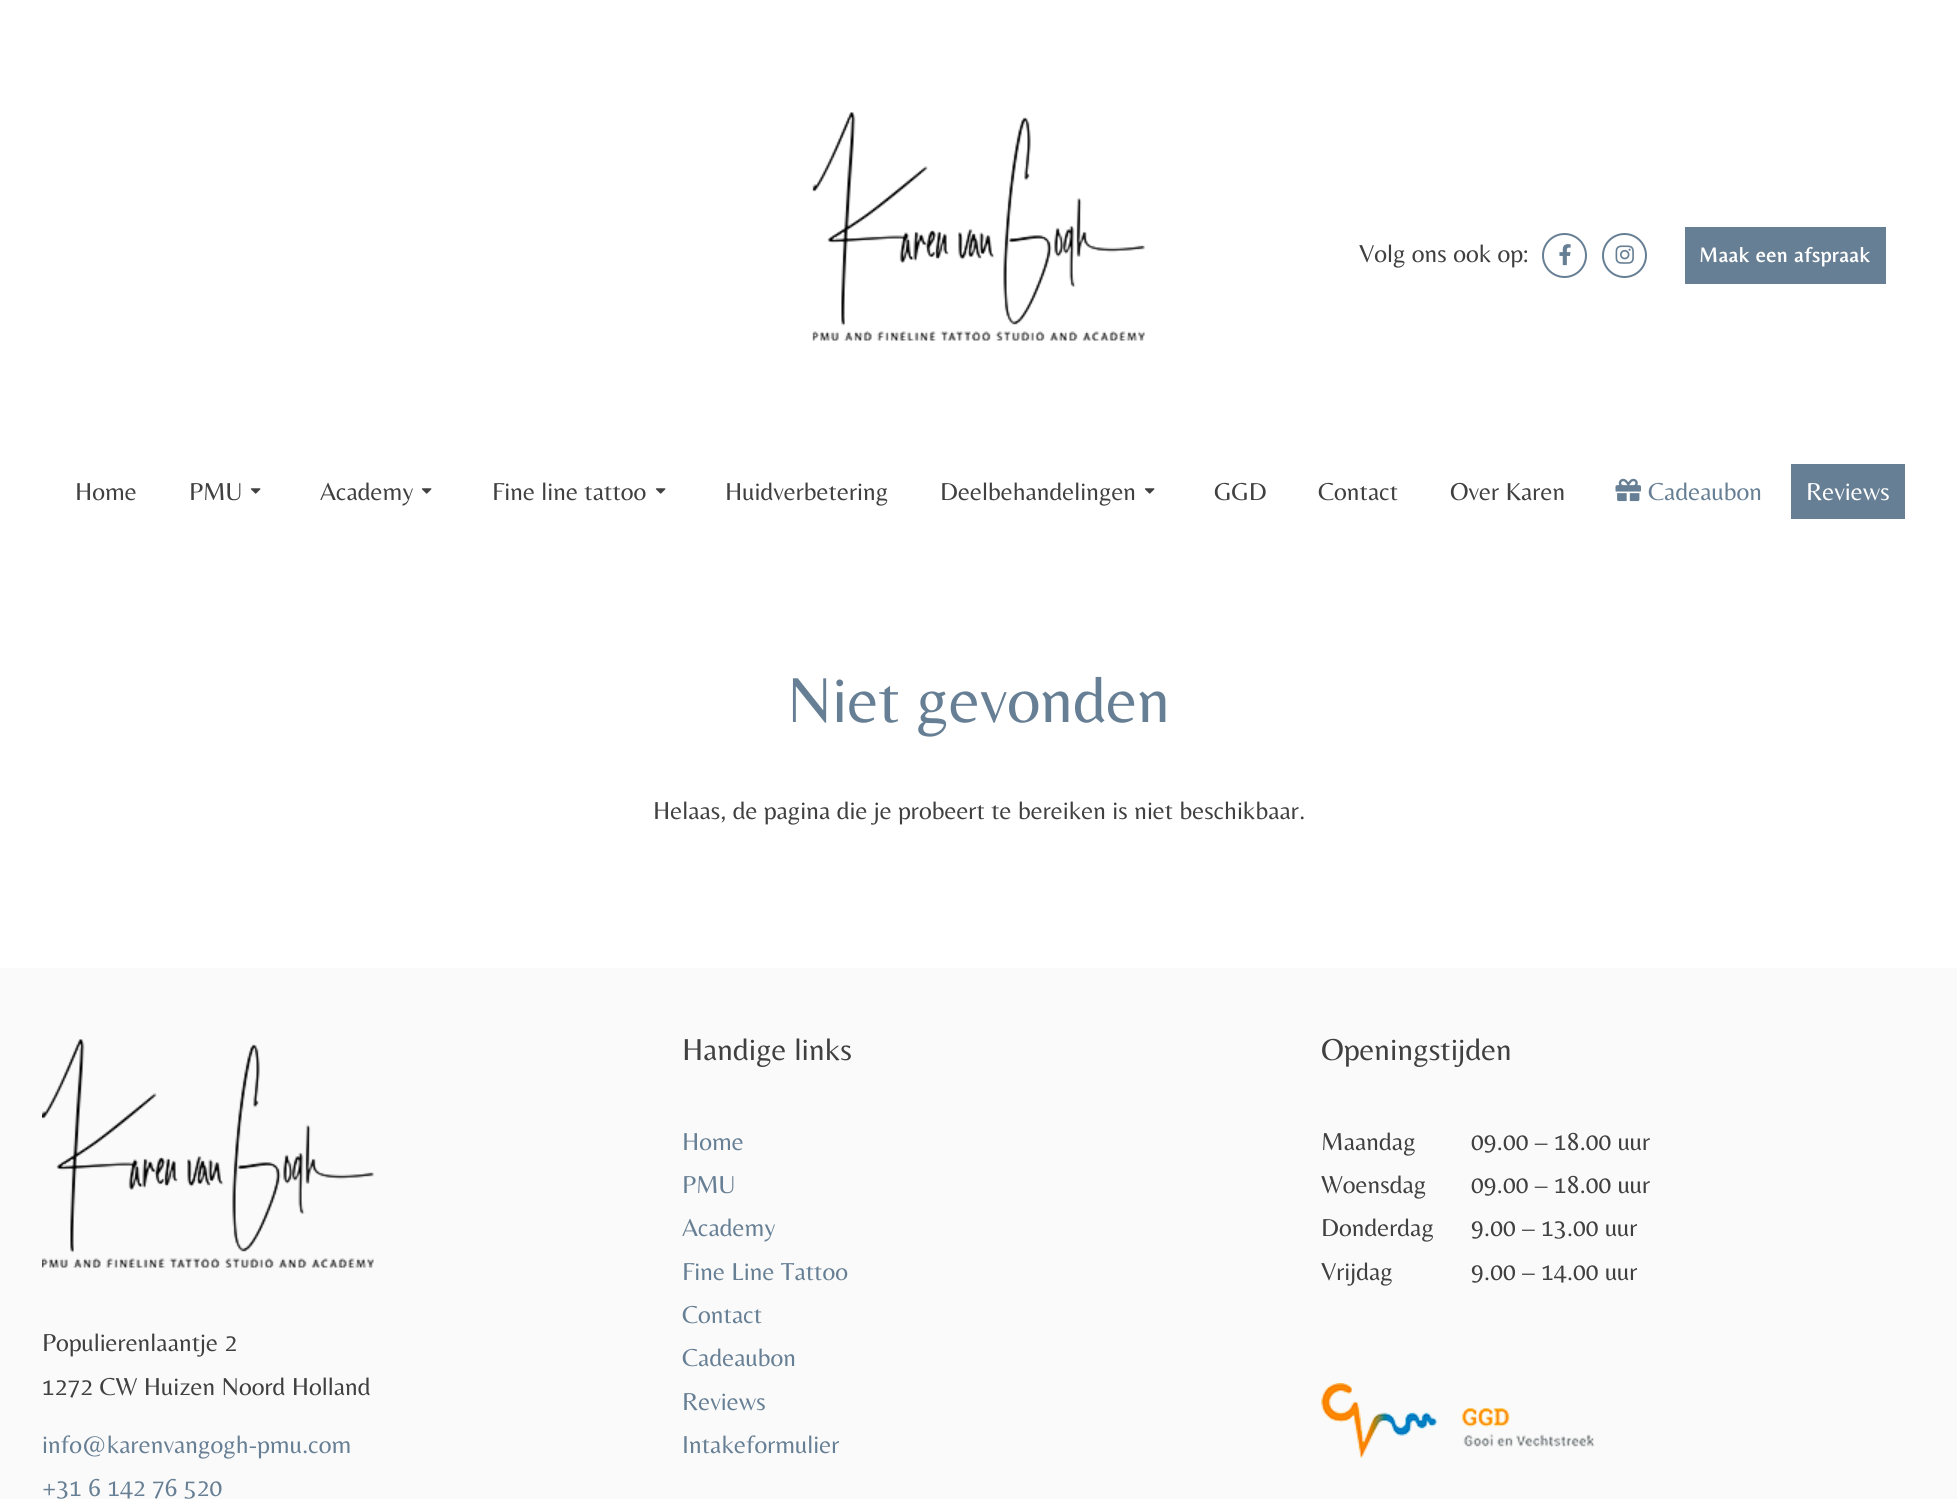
import math
import cairo

surface = cairo.ImageSurface(cairo.Format.RGB24, 1957, 1499)
ctx = cairo.Context(surface)
options = cairo.FontOptions()
options.set_hint_metrics(cairo.HintMetrics.OFF)
options.set_hint_style(cairo.HintStyle.NONE)
ctx.set_font_options(options)
ctx.set_miter_limit(4)


def ink(r, g, b):
    ctx.set_source_rgb(r / 255, g / 255, b / 255)


def write(x, y, s, family, size, color, bold=False, italic=False):
    ctx.select_font_face(family, cairo.FontSlant.ITALIC if italic else cairo.FontSlant.NORMAL, cairo.FontWeight.BOLD if bold else cairo.FontWeight.NORMAL)
    ctx.set_font_size(size)
    ink(*color)
    ctx.move_to(x, y)
    ctx.show_text(s)


def write_spaced(x, y, s, letter, word):
    ctx.move_to(x, y)
    for ch in s:
        ctx.show_text(ch)
        ctx.rel_move_to(letter + word * (ch == ' '), 0)


def block(x, y, w, h, *color):
    ink(*color)
    ctx.rectangle(x, y, w, h)
    ctx.fill()


def paste(path, x, y, w, h):
    ctx.save()
    ctx.set_source_surface(cairo.ImageSurface.create_from_png(path), x, y)
    ctx.rectangle(x, y, w, h)
    ctx.fill()
    ctx.restore()


s1 = dict(family="Belleza", size=25.5, color=(64, 64, 64))
s2 = dict(family="Belleza", size=25.5, color=(103, 127, 148))
s3 = dict(family="Belleza", size=25.5, color=(255, 255, 255))
s4 = dict(family="Belleza", size=66, color=(103, 127, 148))
s5 = dict(family="Belleza", size=31.5, color=(64, 64, 64))

ink(255, 255, 255)
ctx.paint()
paste("pic1.png", 812, 112, 333, 229)
write(1359, 262, "Volg ons ook op:", **s1)
ctx.new_path()
ctx.arc(1564.5, 255.5, 21.5, 0, 2 * math.pi)
ink(103, 127, 148)
ctx.stroke()
paste("pic2.png", 1559, 244, 12, 22)
ctx.arc(1624.5, 255.5, 21.5, 0, 2 * math.pi)
ctx.stroke()
paste("pic3.png", 1615, 245, 19, 19)
block(1685, 227, 201, 57, 103, 127, 148)
ctx.select_font_face("Belleza", cairo.FontSlant.NORMAL, cairo.FontWeight.BOLD)
ctx.set_font_size(21)
ink(255, 255, 255)
write_spaced(1699, 262, "Maak een afspraak", 0.75, 0)
write(75, 500, "Home", **s1)
write(189, 500, "PMU", **s1)
paste("pic4.png", 250, 488, 11, 6)
write(320, 500, "Academy", **s1)
paste("pic4.png", 421, 488, 11, 6)
write(492, 500, "Fine line tattoo", **s1)
paste("pic4.png", 655, 488, 11, 6)
write(725, 500, "Huidverbetering", **s1)
write(940, 500, "Deelbehandelingen", **s1)
paste("pic4.png", 1144, 488, 11, 6)
write(1214, 500, "GGD", **s1)
write(1318, 500, "Contact", **s1)
write(1450, 500, "Over Karen", **s1)
paste("pic5.png", 1615, 478, 26, 24)
write(1648, 500, "Cadeaubon", **s2)
block(1791, 464, 114, 55, 103, 127, 148)
write(1806, 500, "Reviews", **s3)
write(787, 722, "Niet gevonden", **s4)
write(653, 819, "Helaas, de pagina die je probeert te bereiken is niet beschikbaar.", **s1)
block(0, 968, 1957, 531, 250, 250, 250)
write(682, 1060, "Handige links", **s5)
write(682, 1150, "Home", **s2)
write(682, 1193, "PMU", **s2)
write(682, 1236, "Academy", **s2)
write(682, 1280, "Fine Line Tattoo", **s2)
write(682, 1323, "Contact", **s2)
write(682, 1366, "Cadeaubon", **s2)
write(682, 1410, "Reviews", **s2)
write(682, 1453, "Intakeformulier", **s2)
write(1321, 1060, "Openingstijden", **s5)
write(1321, 1150, "Maandag", **s1)
write(1471, 1150, "09.00 – 18.00 uur", **s1)
write(1321, 1193, "Woensdag", **s1)
write(1471, 1193, "09.00 – 18.00 uur", **s1)
write(1321, 1236, "Donderdag", **s1)
write(1471, 1236, "9.00 – 13.00 uur", **s1)
write(1321, 1280, "Vrijdag", **s1)
write(1471, 1280, "9.00 – 14.00 uur", **s1)
paste("pic6.png", 1321, 1383, 274, 75)
paste("pic7.png", 42, 1039, 332, 229)
write(42, 1351, "Populierenlaantje 2", **s1)
write(42, 1395, "1272 CW Huizen Noord Holland", **s1)
write(42, 1453, "info@karenvangogh-pmu.com", **s2)
write(42, 1496, "+31 6 142 76 520", **s2)
surface.write_to_png("screenshot.png")
